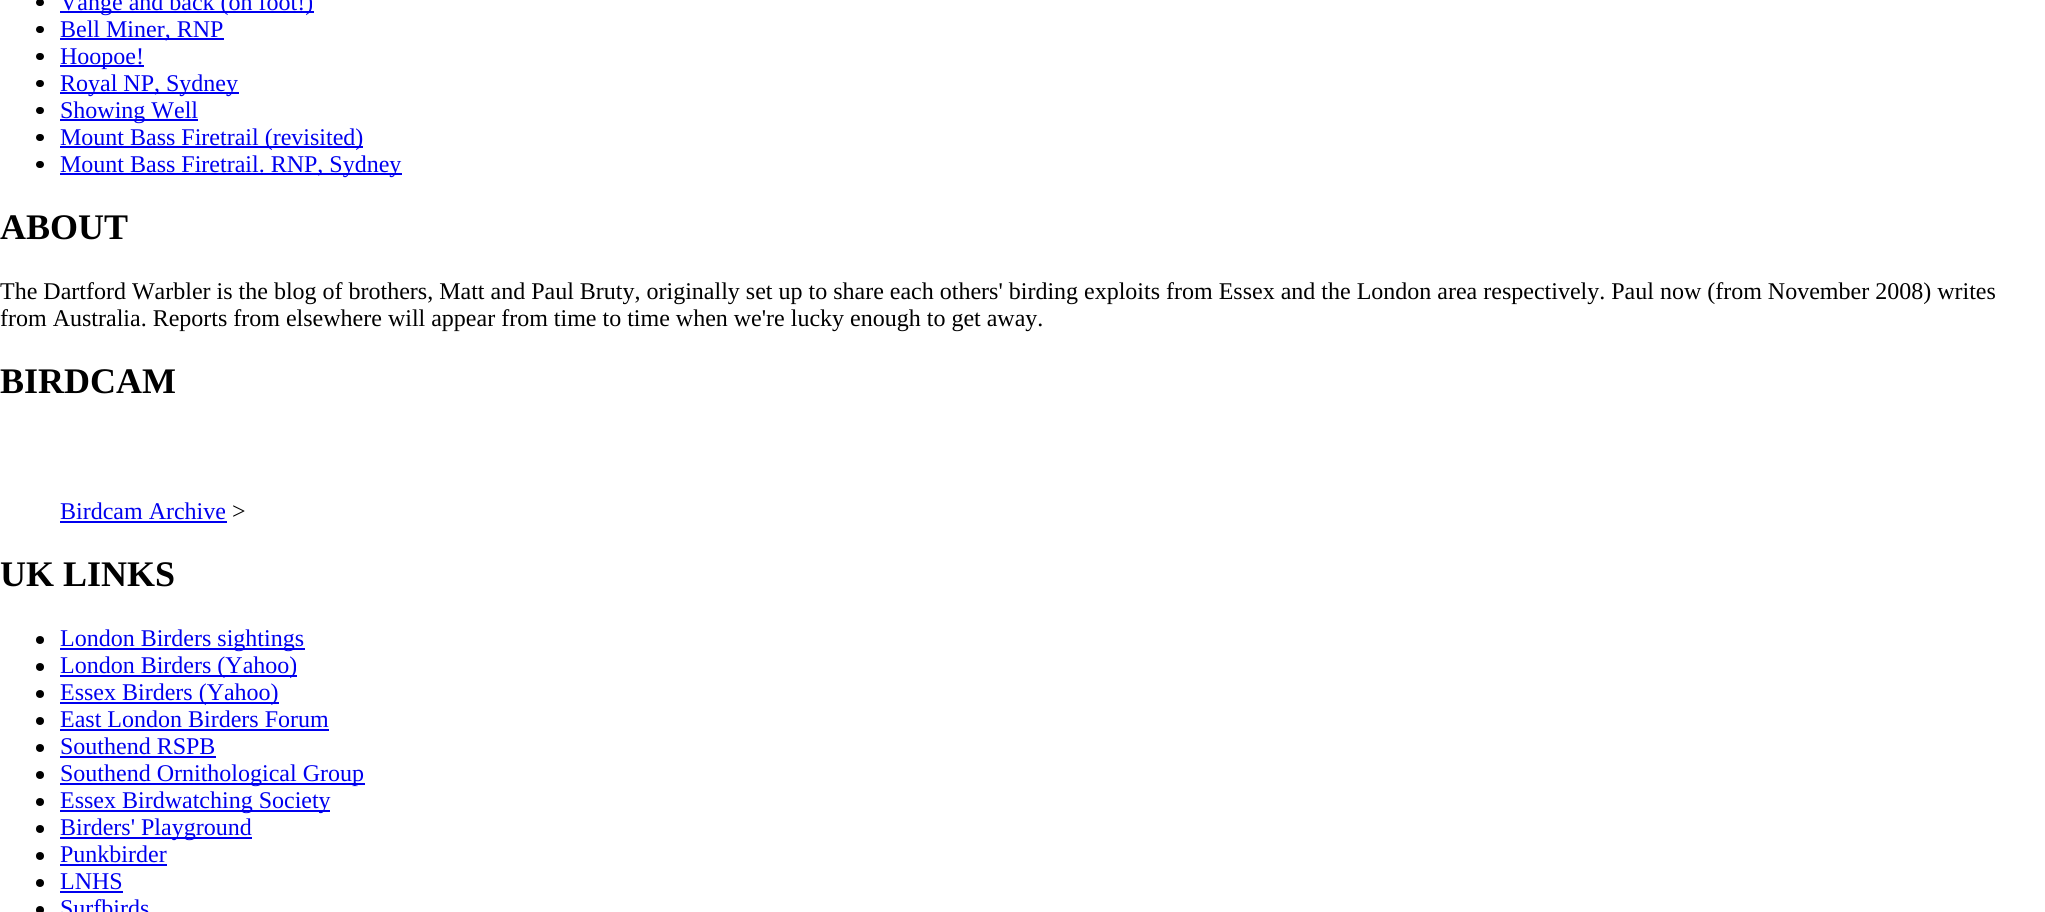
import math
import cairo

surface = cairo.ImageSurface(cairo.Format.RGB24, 2045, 912)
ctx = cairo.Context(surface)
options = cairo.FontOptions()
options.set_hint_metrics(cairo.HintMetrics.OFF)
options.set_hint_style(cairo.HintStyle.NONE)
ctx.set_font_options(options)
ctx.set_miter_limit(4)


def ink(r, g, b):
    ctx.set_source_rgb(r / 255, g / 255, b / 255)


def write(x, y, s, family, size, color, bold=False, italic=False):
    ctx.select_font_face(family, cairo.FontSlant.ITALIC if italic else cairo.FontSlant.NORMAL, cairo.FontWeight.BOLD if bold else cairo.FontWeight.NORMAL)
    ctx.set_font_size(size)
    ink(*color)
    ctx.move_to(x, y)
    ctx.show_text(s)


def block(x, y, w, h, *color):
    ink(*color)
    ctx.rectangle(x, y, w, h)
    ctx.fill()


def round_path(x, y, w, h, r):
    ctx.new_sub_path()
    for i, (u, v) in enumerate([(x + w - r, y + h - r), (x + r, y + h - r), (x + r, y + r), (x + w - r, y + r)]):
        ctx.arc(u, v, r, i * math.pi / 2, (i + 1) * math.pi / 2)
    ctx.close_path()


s1 = dict(family="Liberation Serif", size=24, color=(0, 0, 238))
s2 = dict(family="Liberation Serif", size=36, color=(0, 0, 0), bold=True)
s3 = dict(family="Liberation Serif", size=24, color=(0, 0, 0))

ink(255, 255, 255)
ctx.paint()
ink(0, 0, 0)
round_path(36, -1, 8, 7, 3.5)
ctx.fill()
block(60, 11, 254, 2, 0, 0, 238)
write(60, 10, "Vange and back (on foot!)", **s1)
ink(0, 0, 0)
round_path(36, 26, 8, 7, 3.5)
ctx.fill()
block(60, 38, 164, 2, 0, 0, 238)
write(60, 37, "Bell Miner, RNP", **s1)
ink(0, 0, 0)
round_path(36, 53, 8, 7, 3.5)
ctx.fill()
block(60, 65, 84, 2, 0, 0, 238)
write(60, 64, "Hoopoe!", **s1)
ink(0, 0, 0)
round_path(36, 80, 8, 7, 3.5)
ctx.fill()
block(60, 92, 179, 2, 0, 0, 238)
write(60, 91, "Royal NP, Sydney", **s1)
ink(0, 0, 0)
round_path(36, 107, 8, 7, 3.5)
ctx.fill()
block(60, 119, 138, 2, 0, 0, 238)
write(60, 118, "Showing Well", **s1)
ink(0, 0, 0)
round_path(36, 134, 8, 7, 3.5)
ctx.fill()
block(60, 146, 303, 2, 0, 0, 238)
write(60, 145, "Mount Bass Firetrail (revisited)", **s1)
ink(0, 0, 0)
round_path(36, 161, 8, 7, 3.5)
ctx.fill()
block(60, 173, 342, 2, 0, 0, 238)
write(60, 172, "Mount Bass Firetrail. RNP, Sydney", **s1)
write(0, 239, "ABOUT", **s2)
write(0, 299, "The Dartford Warbler is the blog of brothers, Matt and Paul Bruty, originally set up to share each others' birding exploits from Essex and the London area respectively. Paul now (from November 2008) writes", **s3)
write(0, 326, "from Australia. Reports from elsewhere will appear from time to time when we're lucky enough to get away.", **s3)
write(0, 393, "BIRDCAM", **s2)
write(60, 519, "Birdcam Archive", **s1)
block(60, 521, 167, 2, 0, 0, 238)
write(232, 519, ">", **s3)
write(0, 586, "UK LINKS", **s2)
ctx.new_path()
ctx.arc(40, 640, 4, 0, 2 * math.pi)
ctx.fill()
block(60, 648, 245, 2, 0, 0, 238)
write(60, 646, "London Birders sightings", **s1)
ink(0, 0, 0)
ctx.new_path()
ctx.arc(40, 667, 4, 0, 2 * math.pi)
ctx.fill()
block(60, 675, 237, 2, 0, 0, 238)
write(60, 673, "London Birders (Yahoo)", **s1)
ink(0, 0, 0)
ctx.new_path()
ctx.arc(40, 694, 4, 0, 2 * math.pi)
ctx.fill()
block(60, 702, 219, 2, 0, 0, 238)
write(60, 700, "Essex Birders (Yahoo)", **s1)
ink(0, 0, 0)
ctx.new_path()
ctx.arc(40, 721, 4, 0, 2 * math.pi)
ctx.fill()
write(60, 727, "East London Birders Forum", **s1)
block(60, 729, 269, 2, 0, 0, 238)
ink(0, 0, 0)
ctx.new_path()
ctx.arc(40, 748, 4, 0, 2 * math.pi)
ctx.fill()
write(60, 754, "Southend RSPB", **s1)
block(60, 756, 156, 2, 0, 0, 238)
ink(0, 0, 0)
ctx.new_path()
ctx.arc(40, 775, 4, 0, 2 * math.pi)
ctx.fill()
block(60, 783, 305, 2, 0, 0, 238)
write(60, 781, "Southend Ornithological Group", **s1)
ink(0, 0, 0)
ctx.new_path()
ctx.arc(40, 802, 4, 0, 2 * math.pi)
ctx.fill()
block(60, 810, 270, 2, 0, 0, 238)
write(60, 808, "Essex Birdwatching Society", **s1)
ink(0, 0, 0)
ctx.new_path()
ctx.arc(40, 829, 4, 0, 2 * math.pi)
ctx.fill()
block(60, 837, 192, 2, 0, 0, 238)
write(60, 835, "Birders' Playground", **s1)
ink(0, 0, 0)
ctx.new_path()
ctx.arc(40, 856, 4, 0, 2 * math.pi)
ctx.fill()
write(60, 862, "Punkbirder", **s1)
block(60, 864, 107, 2, 0, 0, 238)
ink(0, 0, 0)
ctx.new_path()
ctx.arc(40, 883, 4, 0, 2 * math.pi)
ctx.fill()
write(60, 889, "LNHS", **s1)
block(60, 891, 63, 2, 0, 0, 238)
ink(0, 0, 0)
ctx.new_path()
ctx.arc(40, 910, 4, 0, 2 * math.pi)
ctx.fill()
write(60, 916, "Surfbirds", **s1)
surface.write_to_png("screenshot.png")
